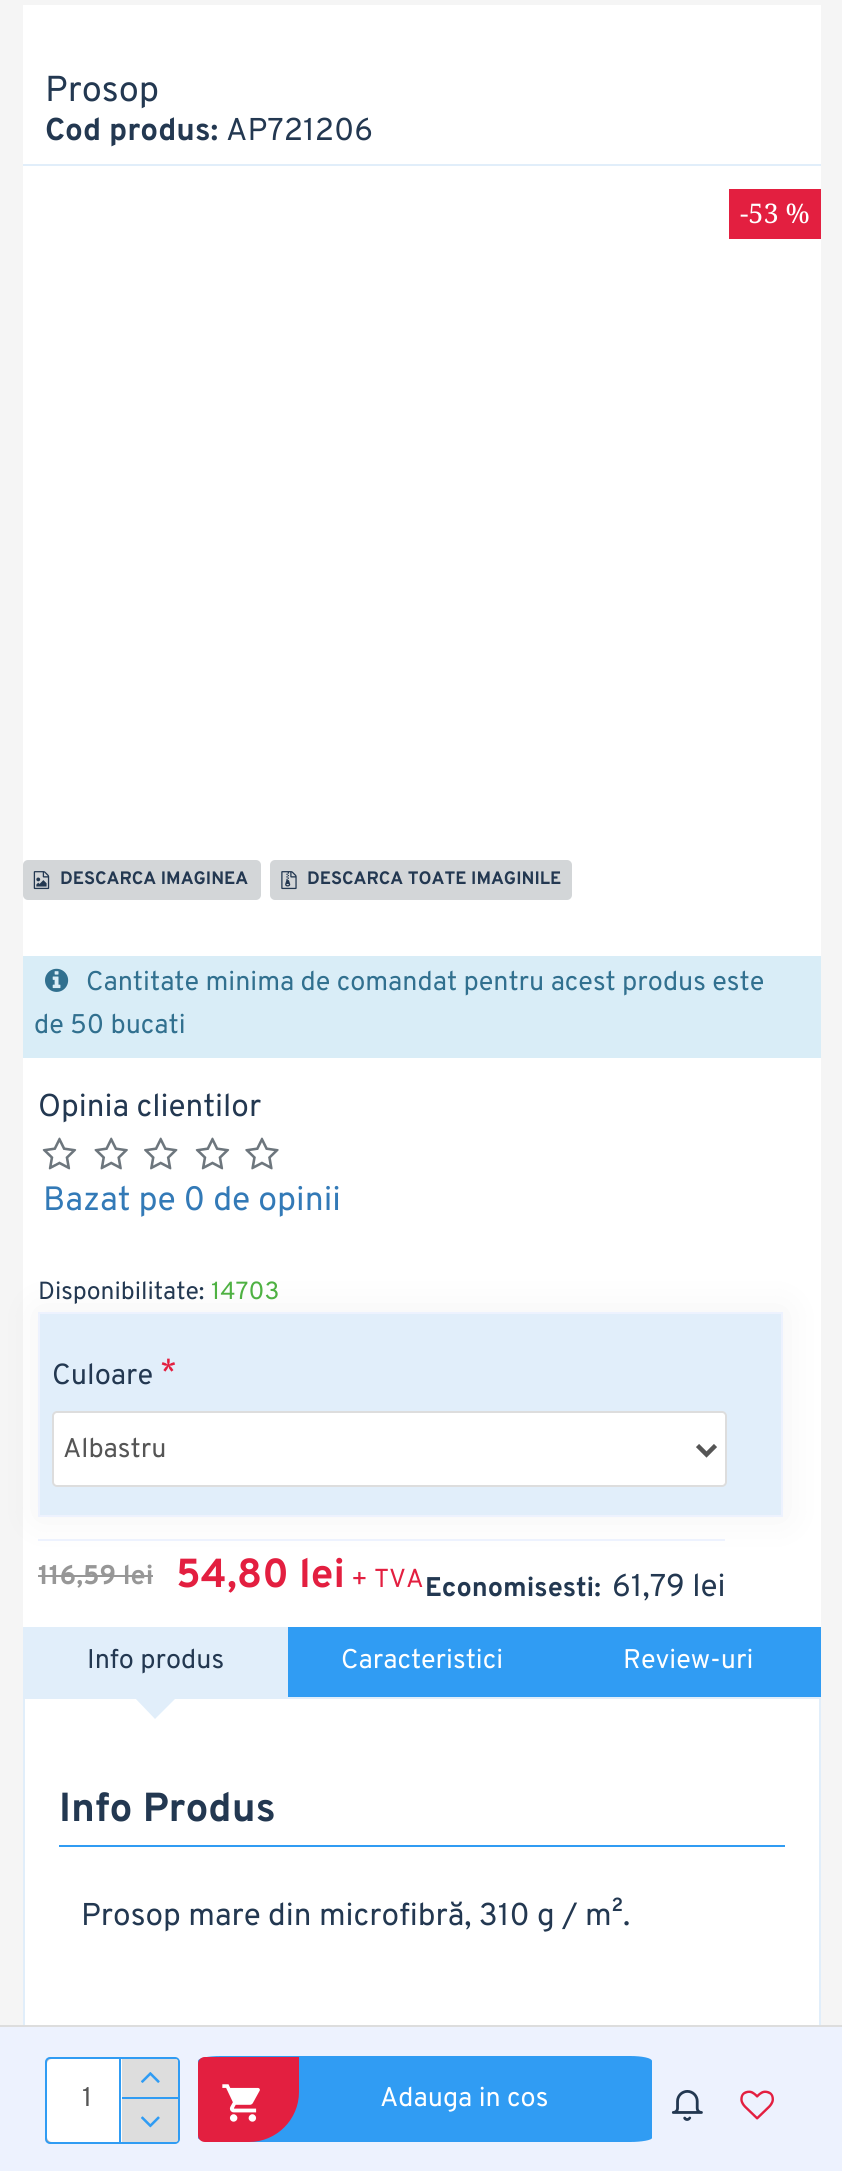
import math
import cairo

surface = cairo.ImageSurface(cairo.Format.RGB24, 842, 2171)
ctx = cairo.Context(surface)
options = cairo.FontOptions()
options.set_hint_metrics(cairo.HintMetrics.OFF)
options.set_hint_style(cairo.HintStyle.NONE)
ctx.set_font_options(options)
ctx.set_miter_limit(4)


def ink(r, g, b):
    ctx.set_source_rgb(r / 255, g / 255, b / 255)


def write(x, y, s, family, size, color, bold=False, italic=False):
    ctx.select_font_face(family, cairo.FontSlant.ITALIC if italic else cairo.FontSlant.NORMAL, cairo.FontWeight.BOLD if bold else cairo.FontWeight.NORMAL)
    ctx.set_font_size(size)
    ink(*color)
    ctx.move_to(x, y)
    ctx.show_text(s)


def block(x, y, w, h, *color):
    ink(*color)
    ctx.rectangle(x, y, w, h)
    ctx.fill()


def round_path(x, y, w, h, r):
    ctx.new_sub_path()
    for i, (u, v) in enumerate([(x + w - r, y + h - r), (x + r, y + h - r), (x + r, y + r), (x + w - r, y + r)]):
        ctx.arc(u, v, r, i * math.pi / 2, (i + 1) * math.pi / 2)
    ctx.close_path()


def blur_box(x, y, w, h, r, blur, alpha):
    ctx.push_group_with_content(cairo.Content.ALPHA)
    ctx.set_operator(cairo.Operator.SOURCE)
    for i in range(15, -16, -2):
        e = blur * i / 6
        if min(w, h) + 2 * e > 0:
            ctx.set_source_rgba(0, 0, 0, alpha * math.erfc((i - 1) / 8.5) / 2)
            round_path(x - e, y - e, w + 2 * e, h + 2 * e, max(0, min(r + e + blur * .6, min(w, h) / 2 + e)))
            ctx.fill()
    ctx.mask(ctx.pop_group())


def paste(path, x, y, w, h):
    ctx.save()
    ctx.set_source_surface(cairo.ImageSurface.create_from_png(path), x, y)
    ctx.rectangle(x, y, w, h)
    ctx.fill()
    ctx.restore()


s1 = dict(family="Overpass", size=36, color=(35, 56, 81))
s2 = dict(family="Overpass", size=31.5, color=(35, 56, 81), bold=True)
s3 = dict(family="Overpass", size=31.5, color=(35, 56, 81))
s4 = dict(family="Noto Serif", size=27, color=(255, 255, 255))
s5 = dict(family="Overpass", size=18, color=(35, 56, 81), bold=True)
s6 = dict(family="Overpass", size=27, color=(49, 112, 143))
s7 = dict(family="Overpass", size=33.75, color=(51, 122, 183))
s8 = dict(family="Overpass", size=24.75, color=(35, 56, 81))
s9 = dict(family="Overpass", size=24.75, color=(78, 177, 66))
s10 = dict(family="Overpass", size=29, color=(35, 56, 81))
s11 = dict(family="Overpass", size=31.5, color=(227, 31, 64))
s12 = dict(family="Overpass", size=27, color=(85, 85, 85))
s13 = dict(family="Overpass", size=27, color=(151, 151, 151), bold=True)
s14 = dict(family="Overpass", size=40.5, color=(227, 31, 64), bold=True)
s15 = dict(family="Overpass", size=26, color=(227, 31, 64))
s16 = dict(family="Overpass", size=27, color=(35, 56, 81), bold=True)
s17 = dict(family="Overpass", size=27, color=(255, 255, 255))
s18 = dict(family="Overpass", size=27, color=(35, 56, 81))
s19 = dict(family="Overpass", size=40.5, color=(35, 56, 81), bold=True)

ink(245, 245, 245)
ctx.paint()
block(23, 5, 798, 2020, 255, 255, 255)
block(23, 164, 798, 2, 225, 238, 250)
write(45, 101, "Prosop", **s1)
write(45, 140, "Cod produs:", **s2)
write(226, 140, "AP721206", **s3)
block(729, 189, 92, 50, 227, 31, 64)
write(740, 223, "-53 %", **s4)
ink(211, 214, 216)
round_path(23, 860, 238, 40, 5)
ctx.fill()
paste("pic1.png", 33, 871, 17, 19)
write(60, 884, "DESCARCA IMAGINEA", **s5)
ink(211, 214, 216)
round_path(270, 860, 302, 40, 5)
ctx.fill()
paste("pic2.png", 281, 871, 16, 19)
write(307, 884, "DESCARCA TOATE IMAGINILE", **s5)
block(23, 956, 798, 102, 217, 237, 247)
paste("pic3.png", 45, 968, 24, 24)
write(86, 990, "Cantitate minima de comandat pentru acest produs este", **s6)
write(34, 1033, "de 50 bucati", **s6)
write(38, 1116, "Opinia clientilor", **s3)
paste("pic4.png", 42, 1137, 35, 33)
paste("pic5.png", 94, 1137, 34, 33)
paste("pic6.png", 144, 1137, 34, 33)
paste("pic4.png", 195, 1137, 35, 33)
paste("pic7.png", 245, 1137, 34, 33)
write(43, 1210, "Bazat pe 0 de opinii", **s7)
ink(0, 0, 0)
blur_box(34, 1307, 754, 214, 0, 22.5, 0.04)
write(38, 1299, "Disponibilitate:", **s8)
write(211, 1299, "14703", **s9)
ink(225, 238, 250)
ctx.rectangle(39, 1313, 743, 203)
ctx.fill_preserve()
ink(237, 242, 254)
ctx.stroke()
write(52, 1384, "Culoare", **s10)
write(160, 1381, "*", **s11)
ink(255, 255, 255)
round_path(53, 1412, 673, 74, 4)
ctx.fill_preserve()
ink(221, 221, 221)
ctx.stroke()
ctx.new_path()
ctx.move_to(697.5, 1445.5)
ctx.line_to(706.5, 1454.5)
ctx.line_to(715.5, 1445.5)
ink(85, 85, 85)
ctx.set_line_width(4.5)
ctx.stroke()
write(63, 1457, "Albastru", **s12)
block(38, 1539, 687, 2, 237, 242, 254)
write(38, 1584, "116,59 lei", **s13)
block(38, 1575, 115, 2, 151, 151, 151)
write(176, 1587, "54,80 lei", **s14)
write(351, 1587, "+ TVA", **s15)
write(425, 1596, "Economisesti:", **s16)
write(612, 1596, "61,79 lei", **s3)
ctx.rectangle(24, 1698, 796, 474)
ink(225, 238, 250)
ctx.set_line_width(2)
ctx.stroke()
block(0, 2027, 842, 144, 237, 242, 254)
block(0, 2025, 842, 2, 221, 221, 221)
round_path(46, 2058, 133, 85, 4)
ink(48, 156, 243)
ctx.stroke()
ctx.save()
round_path(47, 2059, 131, 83, 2)
ctx.clip()
ink(85, 85, 85)
blur_box(52, 2068, 121, 74, 0, 17, 1)
ctx.restore()
ink(255, 255, 255)
round_path(47, 2059, 131, 83, 5)
ctx.fill()
write(82, 2106, "1", **s12)
block(119, 2059, 2, 83, 48, 156, 243)
ink(221, 221, 221)
ctx.new_path()
ctx.move_to(122, 2059)
ctx.line_to(176, 2059)
ctx.curve_to(177, 2059, 178, 2060, 178, 2061)
ctx.line_to(178, 2097)
ctx.line_to(122, 2097)
ctx.close_path()
ctx.fill()
block(122, 2097, 56, 2, 48, 156, 243)
paste("pic8.png", 141, 2072, 19, 11)
ink(221, 221, 221)
ctx.new_path()
ctx.move_to(122, 2099)
ctx.line_to(178, 2099)
ctx.line_to(178, 2140)
ctx.curve_to(178, 2141, 177, 2142, 176, 2142)
ctx.line_to(122, 2142)
ctx.close_path()
ctx.fill()
paste("pic9.png", 141, 2116, 19, 12)
ink(48, 156, 243)
ctx.new_path()
ctx.move_to(221, 2056)
ctx.line_to(630, 2056)
ctx.curve_to(642, 2056, 652, 2058, 652, 2061)
ctx.line_to(652, 2138)
ctx.curve_to(652, 2140, 642, 2142, 630, 2142)
ctx.line_to(221, 2142)
ctx.curve_to(208, 2142, 198, 2140, 198, 2138)
ctx.line_to(198, 2061)
ctx.curve_to(198, 2058, 208, 2056, 221, 2056)
ctx.close_path()
ctx.fill()
ink(227, 31, 64)
ctx.new_path()
ctx.move_to(205, 2057)
ctx.line_to(299, 2057)
ctx.line_to(299, 2092)
ctx.curve_to(299, 2119.5, 276.5, 2142, 249, 2142)
ctx.line_to(205, 2142)
ctx.curve_to(201, 2142, 198, 2139, 198, 2135)
ctx.line_to(198, 2064)
ctx.curve_to(198, 2060, 201, 2057, 205, 2057)
ctx.close_path()
ctx.fill()
paste("pic10.png", 222, 2084, 38, 38)
write(380, 2106, "Adauga in cos", **s17)
paste("pic11.png", 671, 2090, 32, 31)
paste("pic12.png", 740, 2090, 34, 30)
block(288, 1627, 533, 70, 48, 156, 243)
ink(225, 238, 250)
ctx.new_path()
ctx.move_to(133, 1696)
ctx.line_to(178, 1696)
ctx.line_to(155, 1719)
ctx.close_path()
ctx.fill()
block(23, 1627, 265, 70, 225, 238, 250)
write(87, 1668, "Info produs", **s18)
write(341, 1668, "Caracteristici", **s17)
write(623, 1668, "Review-uri", **s17)
block(59, 1845, 726, 2, 48, 156, 243)
write(59, 1821, "Info Produs", **s19)
write(81, 1925, "Prosop mare din microfibră, 310 g / m².", **s3)
surface.write_to_png("screenshot.png")
